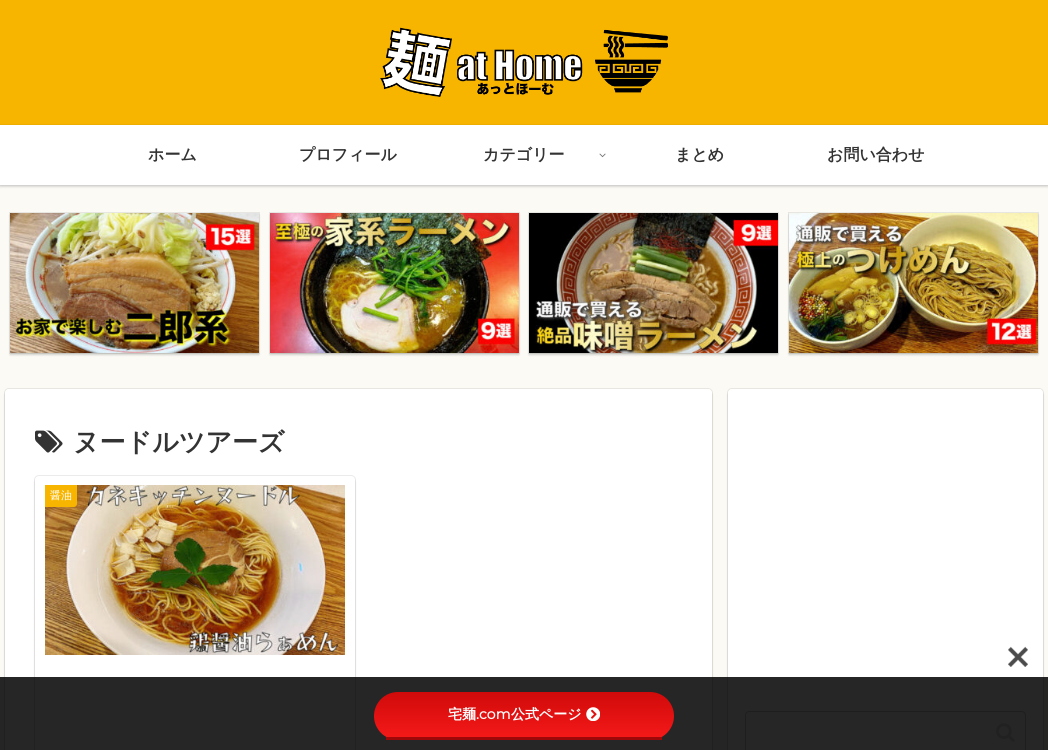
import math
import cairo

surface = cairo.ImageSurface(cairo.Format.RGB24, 1048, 750)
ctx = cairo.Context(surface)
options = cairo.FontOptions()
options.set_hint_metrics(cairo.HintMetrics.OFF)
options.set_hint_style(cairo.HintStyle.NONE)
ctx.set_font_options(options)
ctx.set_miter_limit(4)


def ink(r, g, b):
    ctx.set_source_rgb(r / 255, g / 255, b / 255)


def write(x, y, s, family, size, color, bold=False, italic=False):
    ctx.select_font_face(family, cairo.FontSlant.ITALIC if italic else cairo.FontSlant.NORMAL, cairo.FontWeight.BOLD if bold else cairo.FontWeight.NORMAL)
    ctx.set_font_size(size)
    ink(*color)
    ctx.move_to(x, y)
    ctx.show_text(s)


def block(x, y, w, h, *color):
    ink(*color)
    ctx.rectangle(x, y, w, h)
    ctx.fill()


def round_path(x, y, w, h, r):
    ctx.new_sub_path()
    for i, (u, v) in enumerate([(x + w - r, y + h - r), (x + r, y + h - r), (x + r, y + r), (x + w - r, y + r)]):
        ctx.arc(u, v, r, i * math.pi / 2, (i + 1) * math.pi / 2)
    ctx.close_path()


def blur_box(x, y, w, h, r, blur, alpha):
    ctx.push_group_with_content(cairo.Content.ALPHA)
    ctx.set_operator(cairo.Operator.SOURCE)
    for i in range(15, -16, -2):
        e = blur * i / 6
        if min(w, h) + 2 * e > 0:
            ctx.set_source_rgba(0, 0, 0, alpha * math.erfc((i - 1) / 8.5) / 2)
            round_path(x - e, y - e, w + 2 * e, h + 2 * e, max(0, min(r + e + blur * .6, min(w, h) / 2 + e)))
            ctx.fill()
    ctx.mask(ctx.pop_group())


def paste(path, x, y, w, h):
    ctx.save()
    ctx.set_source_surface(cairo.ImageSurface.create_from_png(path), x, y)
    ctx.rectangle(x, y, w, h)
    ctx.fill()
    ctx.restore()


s1 = dict(family="WenQuanYi Zen Hei", size=16, color=(51, 51, 51), bold=True)
s2 = dict(family="WenQuanYi Zen Hei", size=26, color=(51, 51, 51), bold=True)
s3 = dict(family="WenQuanYi Zen Hei Medium", size=11, color=(255, 255, 255))
s4 = dict(family="WenQuanYi Zen Hei", size=14, color=(255, 255, 255), bold=True)
s5 = dict(family="Montserrat", size=14, color=(255, 255, 255), bold=True)

ink(251, 250, 245)
ctx.paint()
block(0, 125, 1048, 60, 255, 255, 255)
block(0, 0, 1048, 125, 248, 181, 0)
paste("pic1.png", 380, 27, 288, 70)
ctx.save()
ctx.set_fill_rule(cairo.FillRule.EVEN_ODD)
ctx.new_path()
ctx.move_to(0, 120)
ctx.line_to(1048, 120)
ctx.line_to(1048, 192)
ctx.line_to(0, 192)
ctx.close_path()
ctx.move_to(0, 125)
ctx.line_to(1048, 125)
ctx.line_to(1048, 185)
ctx.line_to(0, 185)
ctx.close_path()
ctx.clip()
ink(0, 0, 0)
blur_box(0, 126, 1048, 60, 0, 1.5, 0.25)
ctx.restore()
write(148, 160, "ホーム", **s1)
write(299, 160, "プロフィール", **s1)
write(483, 160, "カテゴリー", **s1)
paste("pic2.png", 599, 153, 7, 5)
write(675, 160, "まとめ", **s1)
write(827, 160, "お問い合わせ", **s1)
ctx.rectangle(9.5, 212.5, 250, 141)
ink(231, 230, 225)
ctx.set_line_width(1)
ctx.stroke()
ink(0, 0, 0)
blur_box(10, 215, 249, 140, 0, 1, 0.16)
paste("pic3.png", 10, 213, 249, 140)
ctx.rectangle(269.5, 212.5, 250, 141)
ink(231, 230, 225)
ctx.stroke()
ink(0, 0, 0)
blur_box(270, 215, 249, 140, 0, 1, 0.16)
paste("pic4.png", 270, 213, 249, 140)
ctx.rectangle(528.5, 212.5, 250, 141)
ink(231, 230, 225)
ctx.stroke()
ink(0, 0, 0)
blur_box(529, 215, 249, 140, 0, 1, 0.16)
paste("pic5.png", 529, 213, 249, 140)
ctx.rectangle(788.5, 212.5, 250, 141)
ink(231, 230, 225)
ctx.stroke()
ink(0, 0, 0)
blur_box(789, 215, 249, 140, 0, 1, 0.16)
paste("pic6.png", 789, 213, 249, 140)
round_path(4.5, 388.5, 708, 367, 4.5)
ink(231, 230, 225)
ctx.stroke()
ink(0, 0, 0)
blur_box(5, 391, 707, 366, 4, 1, 0.16)
ink(255, 255, 255)
round_path(5, 389, 707, 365, 4)
ctx.fill()
paste("pic7.png", 35, 430, 28, 23)
write(73, 451, "ヌードルツアーズ", **s2)
round_path(34.5, 475.5, 321, 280, 4.5)
ink(235, 235, 235)
ctx.stroke()
ctx.save()
ctx.set_fill_rule(cairo.FillRule.EVEN_ODD)
ctx.new_path()
ctx.move_to(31, 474)
ctx.line_to(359, 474)
ctx.line_to(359, 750)
ctx.line_to(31, 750)
ctx.close_path()
ctx.move_to(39, 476)
ctx.line_to(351, 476)
ctx.curve_to(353, 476, 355, 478, 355, 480)
ctx.line_to(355, 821)
ctx.curve_to(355, 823, 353, 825, 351, 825)
ctx.line_to(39, 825)
ctx.curve_to(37, 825, 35, 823, 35, 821)
ctx.line_to(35, 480)
ctx.curve_to(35, 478, 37, 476, 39, 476)
ctx.close_path()
ctx.clip()
ink(0, 0, 0)
blur_box(35, 478, 320, 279, 4, 1, 0.16)
ctx.restore()
paste("pic8.png", 45, 485, 300, 170)
ink(248, 181, 0)
ctx.new_path()
ctx.move_to(45, 485)
ctx.line_to(77, 485)
ctx.line_to(77, 504)
ctx.curve_to(77, 505.5, 75.5, 507, 74, 507)
ctx.line_to(45, 507)
ctx.close_path()
ctx.fill()
write(50, 499, "醤油", **s3)
round_path(727.5, 388.5, 316, 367, 4.5)
ink(231, 230, 225)
ctx.stroke()
ink(0, 0, 0)
blur_box(728, 391, 315, 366, 4, 1, 0.16)
ink(255, 255, 255)
round_path(728, 389, 315, 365, 4)
ctx.fill()
round_path(745.5, 711.5, 280, 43, 3.5)
ink(204, 204, 204)
ctx.stroke()
paste("pic9.png", 996, 723, 19, 19)
ctx.set_source_rgba(0, 0, 0, 0.85)
ctx.rectangle(0, 677, 1048, 73)
ctx.fill()
paste("pic10.png", 1008, 646, 20, 21)
ctx.save()
round_path(374, 692, 300, 48, 24)
ctx.clip()
gradient = cairo.LinearGradient(524, 692, 524, 737)
gradient.add_color_stop_rgba(0, 0.816, 0.039, 0.039, 1)
gradient.add_color_stop_rgba(1, 0.957, 0.098, 0.098, 1)
ctx.set_source(gradient)
ctx.new_path()
ctx.move_to(398, 692)
ctx.line_to(650, 692)
ctx.curve_to(663.5, 692, 674, 702.5, 674, 716)
ctx.line_to(674, 737)
ctx.line_to(374, 737)
ctx.line_to(374, 716)
ctx.curve_to(374, 702.5, 384.5, 692, 398, 692)
ctx.close_path()
ctx.fill()
ctx.restore()
block(386, 737, 276, 3, 159, 8, 8)
write(448, 719, "宅麺", **s4)
write(476, 719, ".com", **s5)
write(511, 719, "公式ページ", **s4)
paste("pic11.png", 586, 707, 14, 14)
surface.write_to_png("screenshot.png")
